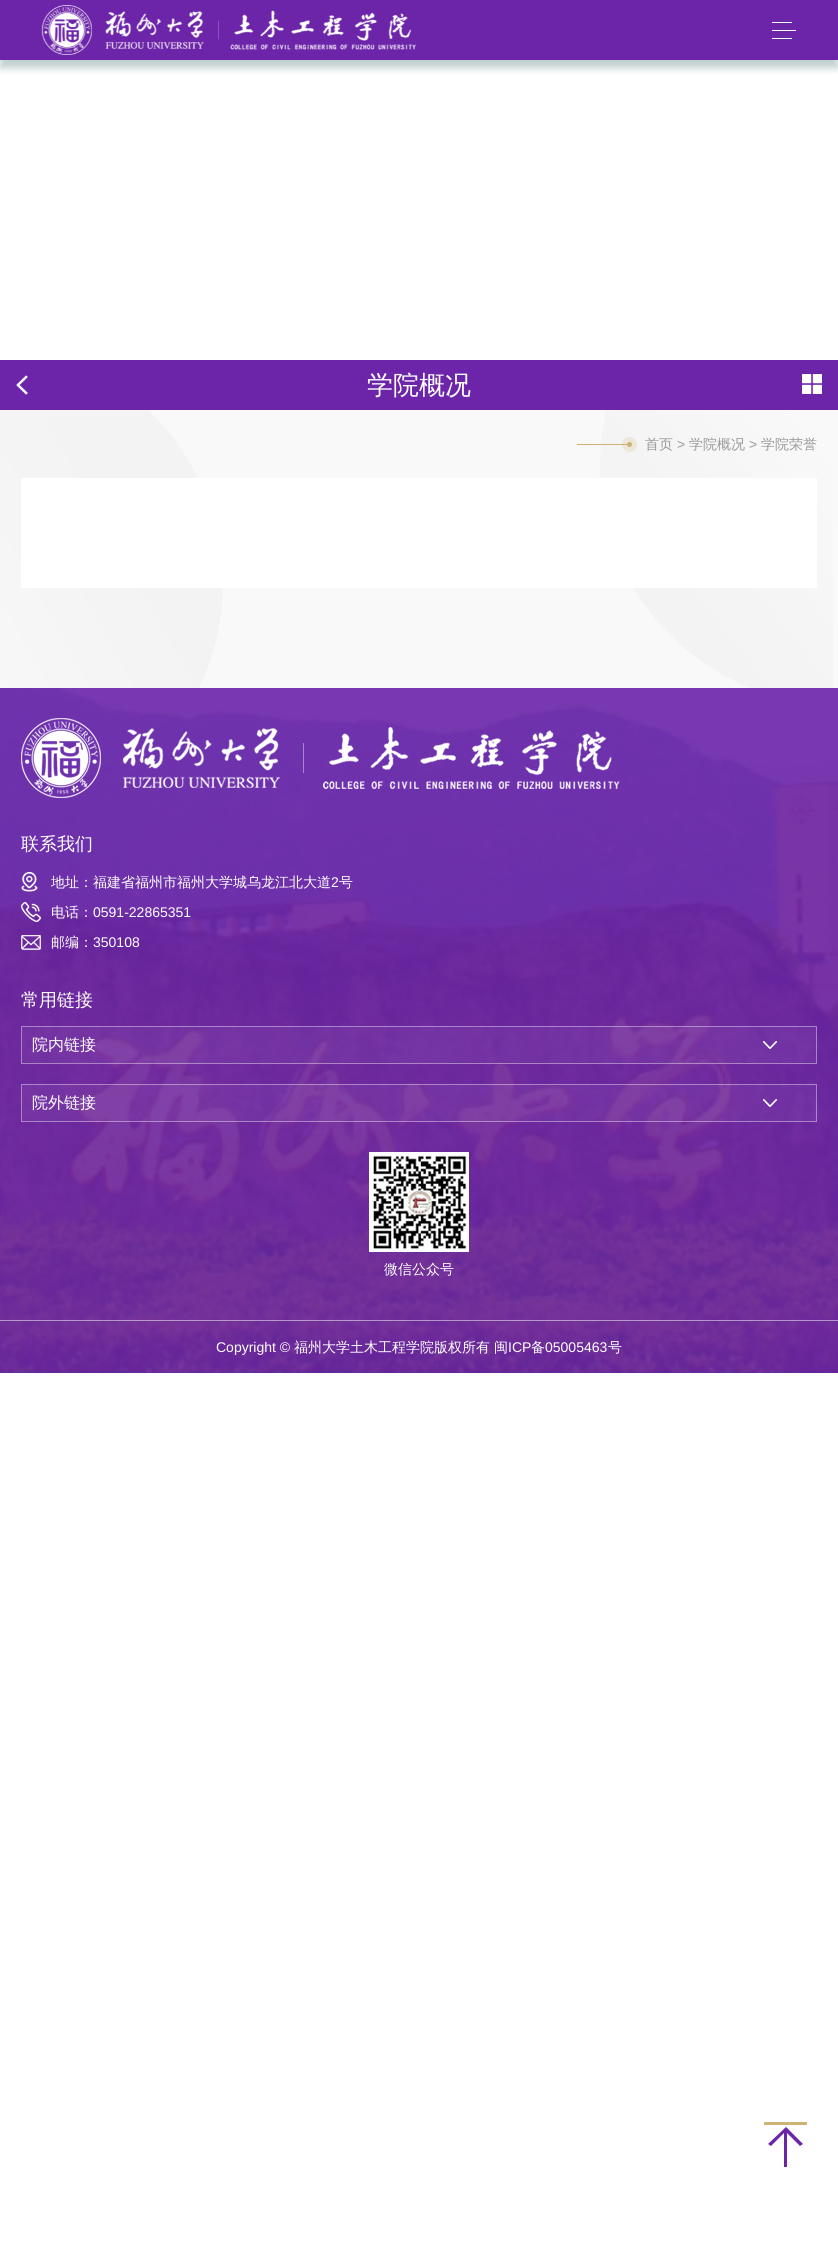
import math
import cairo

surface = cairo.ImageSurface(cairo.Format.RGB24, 838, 2247)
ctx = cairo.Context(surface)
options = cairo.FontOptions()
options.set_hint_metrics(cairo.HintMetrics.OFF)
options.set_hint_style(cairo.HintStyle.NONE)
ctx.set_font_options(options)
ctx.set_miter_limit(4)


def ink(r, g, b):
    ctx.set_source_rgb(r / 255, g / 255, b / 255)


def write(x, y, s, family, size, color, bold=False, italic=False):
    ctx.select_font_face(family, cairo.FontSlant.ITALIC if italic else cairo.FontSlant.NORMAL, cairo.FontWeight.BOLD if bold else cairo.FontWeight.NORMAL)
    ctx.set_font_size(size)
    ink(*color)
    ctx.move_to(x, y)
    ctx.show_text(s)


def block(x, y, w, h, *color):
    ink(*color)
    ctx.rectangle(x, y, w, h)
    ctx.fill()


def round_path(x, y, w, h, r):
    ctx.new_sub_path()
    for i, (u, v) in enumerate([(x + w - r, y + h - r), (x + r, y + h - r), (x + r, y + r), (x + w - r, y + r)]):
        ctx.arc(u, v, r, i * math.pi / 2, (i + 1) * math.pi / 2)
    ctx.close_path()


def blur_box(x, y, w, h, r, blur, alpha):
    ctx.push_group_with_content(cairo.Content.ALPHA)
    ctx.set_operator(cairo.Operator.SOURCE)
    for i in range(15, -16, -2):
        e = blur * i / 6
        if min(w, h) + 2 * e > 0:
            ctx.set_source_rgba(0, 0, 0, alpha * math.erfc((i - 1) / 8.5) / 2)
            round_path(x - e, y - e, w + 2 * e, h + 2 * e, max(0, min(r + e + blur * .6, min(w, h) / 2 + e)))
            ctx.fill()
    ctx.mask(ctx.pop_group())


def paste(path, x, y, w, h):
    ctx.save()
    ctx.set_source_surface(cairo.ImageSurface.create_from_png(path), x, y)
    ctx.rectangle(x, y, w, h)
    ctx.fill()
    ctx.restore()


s1 = dict(family="WenQuanYi Zen Hei Medium", size=26, color=(255, 255, 255))
s2 = dict(family="WenQuanYi Zen Hei Medium", size=14, color=(153, 153, 153))
s3 = dict(family="Liberation Sans", size=14, color=(153, 153, 153))
s4 = dict(family="WenQuanYi Zen Hei Medium", size=18, color=(255, 255, 255))
s5 = dict(family="WenQuanYi Zen Hei Medium", size=14, color=(255, 255, 255))
s6 = dict(family="Liberation Sans", size=14, color=(255, 255, 255))
s7 = dict(family="WenQuanYi Zen Hei Medium", size=16, color=(255, 255, 255))

ink(255, 255, 255)
ctx.paint()
block(0, 0, 838, 60, 108, 36, 169)
ctx.save()
ctx.rectangle(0, 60, 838, 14)
ctx.clip()
ink(0, 55, 59)
blur_box(0, 8, 838, 60, 0, 4, 0.25)
ctx.restore()
paste("pic1.png", 41, 5, 375, 50)
block(772, 30, 24, 1, 255, 255, 255)
block(772, 22, 20, 1, 255, 255, 255)
block(772, 38, 20, 1, 255, 255, 255)
block(0, 360, 838, 50, 108, 36, 169)
paste("pic2.png", 16, 375, 12, 20)
write(367, 394, "学院概况", **s1)
paste("pic3.png", 802, 374, 20, 20)
block(833, 410, 5, 278, 249, 249, 249)
paste("pic4.png", 0, 410, 833, 278)
paste("pic5.png", 577, 437, 60, 15)
write(645, 449, "首页", **s2)
write(677, 449, ">", **s3)
write(689, 449, "学院概况", **s2)
write(749, 449, ">", **s3)
write(761, 449, "学院荣誉", **s2)
block(21, 478, 796, 110, 255, 255, 255)
paste("pic6.png", 0, 688, 838, 685)
paste("pic7.png", 21, 718, 599, 80)
write(21, 850, "联系我们", **s4)
paste("pic8.png", 21, 872, 17, 20)
write(51, 887, "地址：福建省福州市福州大学城乌龙江北大道", **s5)
write(331, 887, "2", **s6)
write(339, 887, "号", **s5)
paste("pic9.png", 21, 902, 20, 20)
write(51, 917, "电话：", **s5)
write(93, 917, "0591-22865351", **s6)
paste("pic10.png", 21, 935, 20, 15)
write(51, 947, "邮编：", **s5)
write(93, 947, "350108", **s6)
write(21, 1006, "常用链接", **s4)
ctx.set_source_rgba(1, 1, 1, 0.05)
ctx.rectangle(21, 1026, 796, 38)
ctx.fill()
paste("pic11.png", 763, 1041, 14, 8)
ctx.rectangle(21.5, 1026.5, 795, 37)
ctx.set_source_rgba(1, 1, 1, 0.4)
ctx.set_line_width(1)
ctx.stroke()
write(32, 1050, "院内链接", **s7)
ctx.set_source_rgba(1, 1, 1, 0.05)
ctx.rectangle(21, 1084, 796, 38)
ctx.fill()
paste("pic12.png", 763, 1099, 14, 8)
ctx.rectangle(21.5, 1084.5, 795, 37)
ctx.set_source_rgba(1, 1, 1, 0.4)
ctx.stroke()
write(32, 1108, "院外链接", **s7)
paste("pic13.png", 369, 1152, 100, 100)
write(384, 1274, "微信公众号", **s5)
ctx.set_source_rgba(1, 1, 1, 0.5)
ctx.rectangle(0, 1320, 838, 1)
ctx.fill()
write(216, 1352, "Copyright ©", **s6)
write(294, 1352, "福州大学土木工程学院版权所有", **s5)
write(494, 1352, "闽", **s5)
write(508, 1352, "ICP", **s6)
write(531, 1352, "备", **s5)
write(545, 1352, "05005463", **s6)
write(608, 1352, "号", **s5)
block(764, 2122, 43, 3, 206, 180, 114)
ink(108, 36, 169)
ctx.new_path()
ctx.move_to(788, 2129)
ctx.line_to(786, 2127)
ctx.line_to(768, 2144)
ctx.line_to(771, 2146)
ctx.line_to(784, 2133)
ctx.line_to(784, 2167)
ctx.line_to(787, 2167)
ctx.line_to(787, 2133)
ctx.line_to(800, 2146)
ctx.line_to(803, 2144)
ctx.close_path()
ctx.fill()
surface.write_to_png("screenshot.png")
